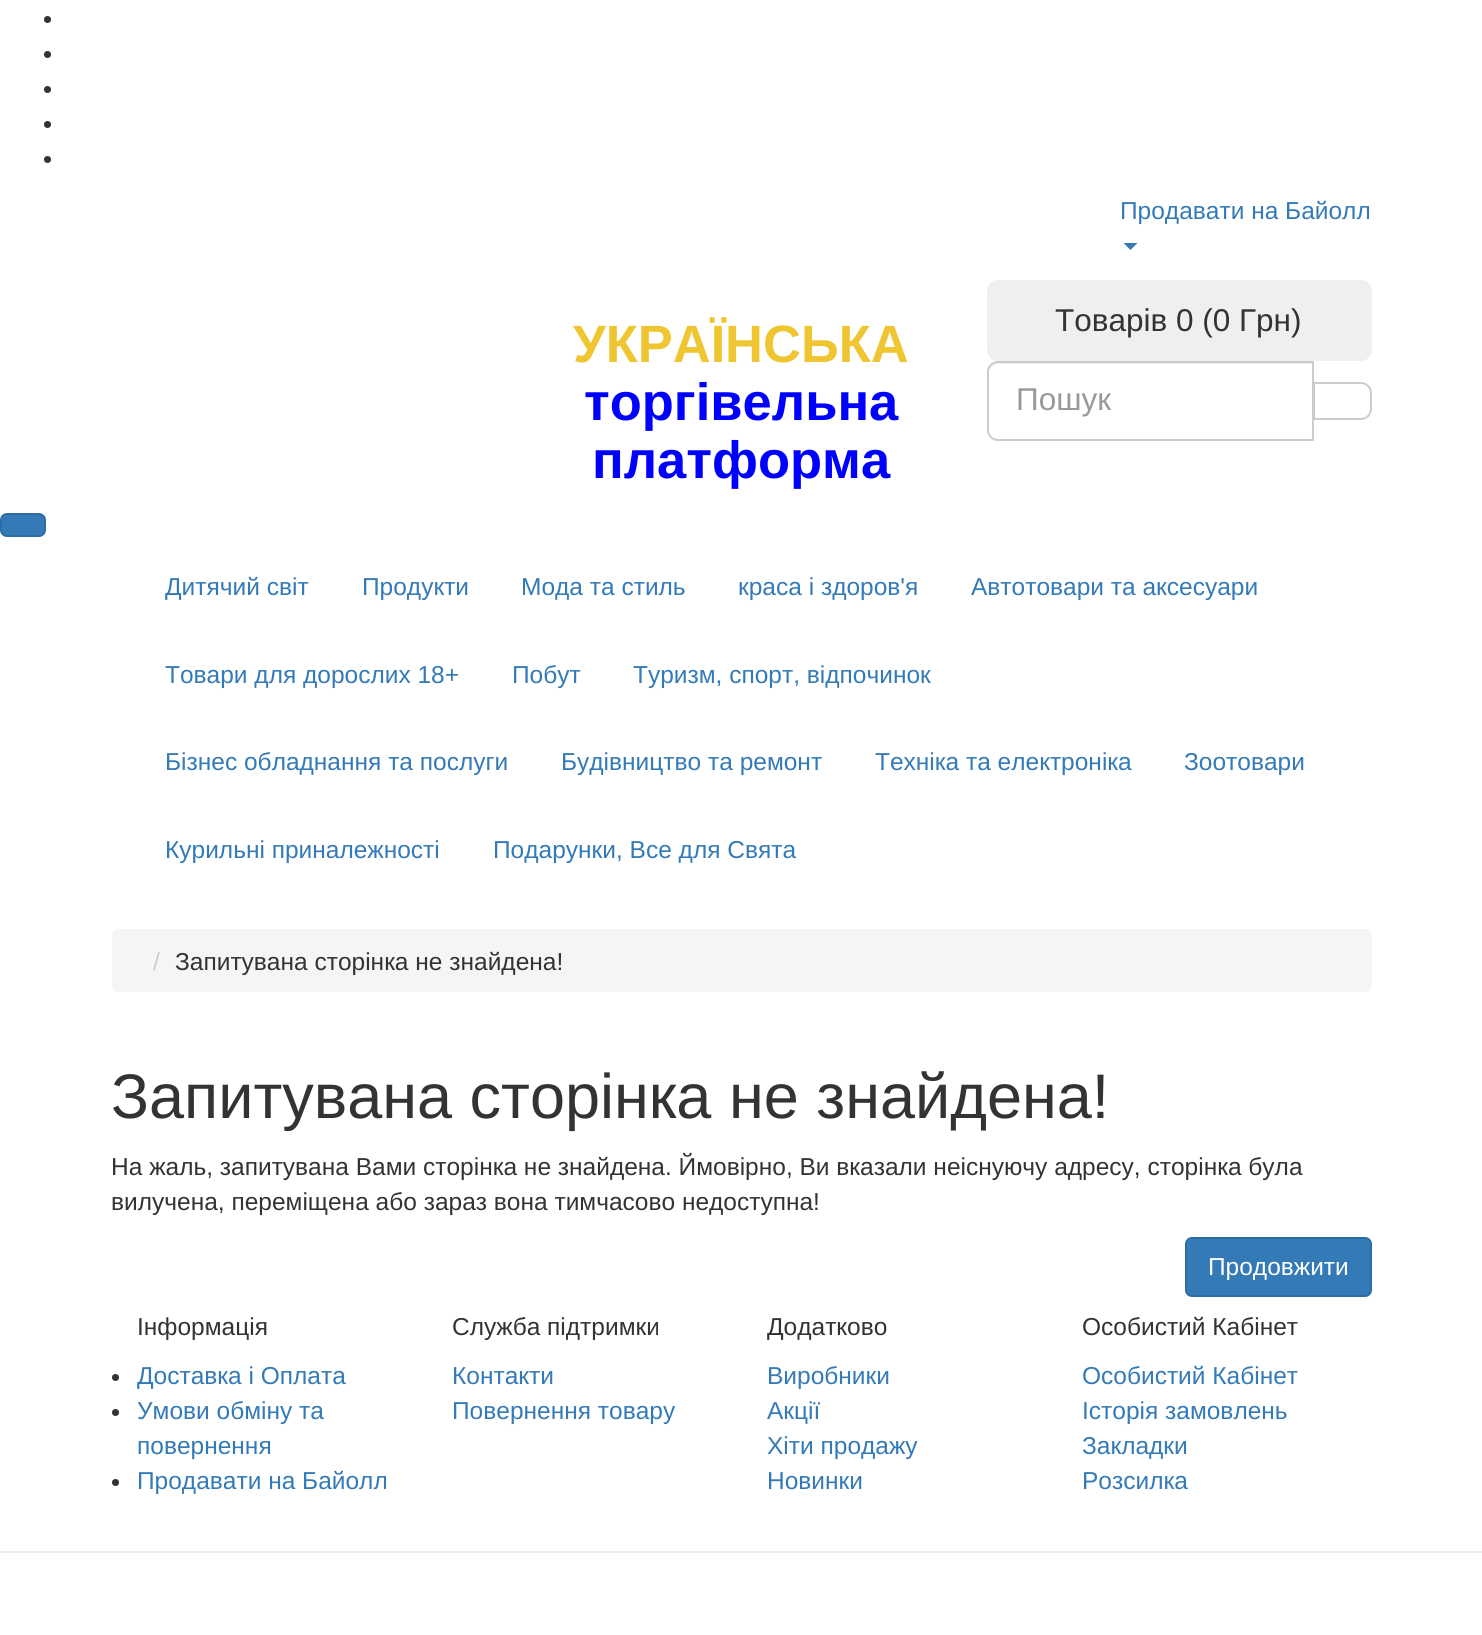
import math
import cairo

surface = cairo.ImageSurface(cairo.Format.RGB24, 1482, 1635)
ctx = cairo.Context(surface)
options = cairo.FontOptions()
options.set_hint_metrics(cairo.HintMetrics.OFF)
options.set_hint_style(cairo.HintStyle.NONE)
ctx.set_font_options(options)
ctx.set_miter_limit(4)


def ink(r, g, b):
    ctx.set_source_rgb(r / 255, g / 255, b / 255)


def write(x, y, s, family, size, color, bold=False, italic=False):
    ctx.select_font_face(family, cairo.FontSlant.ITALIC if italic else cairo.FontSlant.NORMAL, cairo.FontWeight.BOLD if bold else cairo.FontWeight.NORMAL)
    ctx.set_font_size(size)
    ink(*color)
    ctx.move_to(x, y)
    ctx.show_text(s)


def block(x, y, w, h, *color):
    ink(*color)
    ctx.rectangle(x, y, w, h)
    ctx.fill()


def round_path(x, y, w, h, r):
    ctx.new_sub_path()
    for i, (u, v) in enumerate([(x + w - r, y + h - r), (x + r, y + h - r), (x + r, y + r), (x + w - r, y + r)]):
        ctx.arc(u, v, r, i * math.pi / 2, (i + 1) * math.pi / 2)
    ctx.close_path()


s1 = dict(family="Liberation Sans", size=24.5, color=(51, 122, 183))
s2 = dict(family="Liberation Sans", size=52.5, color=(239, 198, 49), bold=True)
s3 = dict(family="Liberation Sans", size=52.5, color=(0, 0, 255), bold=True)
s4 = dict(family="Liberation Sans", size=31.5, color=(51, 51, 51))
s5 = dict(family="Liberation Sans", size=31.5, color=(153, 153, 153))
s6 = dict(family="Liberation Sans", size=24.5, color=(204, 204, 204))
s7 = dict(family="Liberation Sans", size=24.5, color=(51, 51, 51))
s8 = dict(family="Liberation Sans", size=63, color=(51, 51, 51))
s9 = dict(family="Liberation Sans", size=24.5, color=(255, 255, 255))

ink(255, 255, 255)
ctx.paint()
ink(51, 51, 51)
ctx.arc(47.5, 19.5, 3.5, 0, 2 * math.pi)
ctx.fill()
ctx.arc(47.5, 54.5, 3.5, 0, 2 * math.pi)
ctx.fill()
ctx.arc(47.5, 89.5, 3.5, 0, 2 * math.pi)
ctx.fill()
ctx.arc(47.5, 124.5, 3.5, 0, 2 * math.pi)
ctx.fill()
ctx.arc(47.5, 159.5, 3.5, 0, 2 * math.pi)
ctx.fill()
write(1120, 219, "Продавати на Байолл", **s1)
ctx.new_path()
ctx.move_to(1123.5, 243)
ctx.line_to(1137.5, 243)
ctx.line_to(1130.5, 250)
ctx.close_path()
ctx.fill()
write(573, 362, "УКРАЇНСЬКА", **s2)
write(584, 420, "торгівельна", **s3)
write(592, 478, "платформа", **s3)
ink(239, 239, 239)
round_path(987, 280, 385, 81, 11)
ctx.fill()
write(1055, 331, "Товарів 0 (0 Грн)", **s4)
ink(236, 236, 236)
ctx.new_path()
ctx.move_to(998, 364)
ctx.line_to(1312, 364)
ctx.line_to(1312, 439)
ctx.line_to(1313, 439)
ctx.line_to(1313, 362)
ctx.line_to(998, 362)
ctx.curve_to(992, 362, 989, 367, 989, 373)
ctx.curve_to(989, 368, 993, 364, 998, 364)
ctx.close_path()
ctx.fill()
ctx.new_path()
ctx.move_to(998, 362)
ctx.line_to(1313, 362)
ctx.line_to(1313, 440)
ctx.line_to(998, 440)
ctx.curve_to(992.5, 440, 988, 435.5, 988, 430)
ctx.line_to(988, 372)
ctx.curve_to(988, 366.5, 992.5, 362, 998, 362)
ctx.close_path()
ink(204, 204, 204)
ctx.stroke()
write(1016, 410, "Пошук", **s5)
ink(255, 255, 255)
ctx.new_path()
ctx.move_to(1314, 383)
ctx.line_to(1361, 383)
ctx.curve_to(1366.5, 383, 1371, 387.5, 1371, 393)
ctx.line_to(1371, 409)
ctx.curve_to(1371, 414.5, 1366.5, 419, 1361, 419)
ctx.line_to(1314, 419)
ctx.close_path()
ctx.fill_preserve()
ink(204, 204, 204)
ctx.stroke()
ink(51, 122, 183)
round_path(1, 514, 44, 22, 6)
ctx.fill_preserve()
ink(46, 109, 164)
ctx.stroke()
write(165, 595, "Дитячий світ", **s1)
write(362, 595, "Продукти", **s1)
write(521, 595, "Мода та стиль", **s1)
write(738, 595, "краса і здоров'я", **s1)
write(971, 595, "Автотовари та аксесуари", **s1)
write(165, 683, "Товари для дорослих 18+", **s1)
write(512, 683, "Побут", **s1)
write(633, 683, "Туризм, спорт, відпочинок", **s1)
write(165, 770, "Бізнес обладнання та послуги", **s1)
write(561, 770, "Будівництво та ремонт", **s1)
write(875, 770, "Техніка та електроніка", **s1)
write(1184, 770, "Зоотовари", **s1)
write(165, 858, "Курильні приналежності", **s1)
write(493, 858, "Подарунки, Все для Свята", **s1)
ink(245, 245, 245)
round_path(112, 929, 1260, 63, 7)
ctx.fill()
write(153, 970, "/", **s6)
write(175, 970, "Запитувана сторінка не знайдена!", **s7)
write(111, 1118, "Запитувана сторінка не знайдена!", **s8)
write(111, 1175, "На жаль, запитувана Вами сторінка не знайдена. Ймовірно, Ви вказали неіснуючу адресу, сторінка була", **s7)
write(111, 1210, "вилучена, переміщена або зараз вона тимчасово недоступна!", **s7)
ink(51, 122, 183)
round_path(1186, 1238, 185, 58, 6)
ctx.fill_preserve()
ink(46, 109, 164)
ctx.stroke()
write(1208, 1275, "Продовжити", **s9)
write(137, 1335, "Інформація", **s7)
ctx.new_path()
ctx.arc(115.5, 1377.5, 3.5, 0, 2 * math.pi)
ctx.fill()
write(137, 1384, "Доставка і Оплата", **s1)
ink(51, 51, 51)
ctx.new_path()
ctx.arc(115.5, 1412.5, 3.5, 0, 2 * math.pi)
ctx.fill()
write(137, 1419, "Умови обміну та", **s1)
write(137, 1454, "повернення", **s1)
ink(51, 51, 51)
ctx.new_path()
ctx.arc(115.5, 1482.5, 3.5, 0, 2 * math.pi)
ctx.fill()
write(137, 1489, "Продавати на Байолл", **s1)
write(452, 1335, "Служба підтримки", **s7)
write(452, 1384, "Контакти", **s1)
write(452, 1419, "Повернення товару", **s1)
write(767, 1335, "Додатково", **s7)
write(767, 1384, "Виробники", **s1)
write(767, 1419, "Акції", **s1)
write(767, 1454, "Хіти продажу", **s1)
write(767, 1489, "Новинки", **s1)
write(1082, 1335, "Особистий Кабінет", **s7)
write(1082, 1384, "Особистий Кабінет", **s1)
write(1082, 1419, "Історія замовлень", **s1)
write(1082, 1454, "Закладки", **s1)
write(1082, 1489, "Розсилка", **s1)
block(0, 1551, 1482, 2, 238, 238, 238)
surface.write_to_png("screenshot.png")
